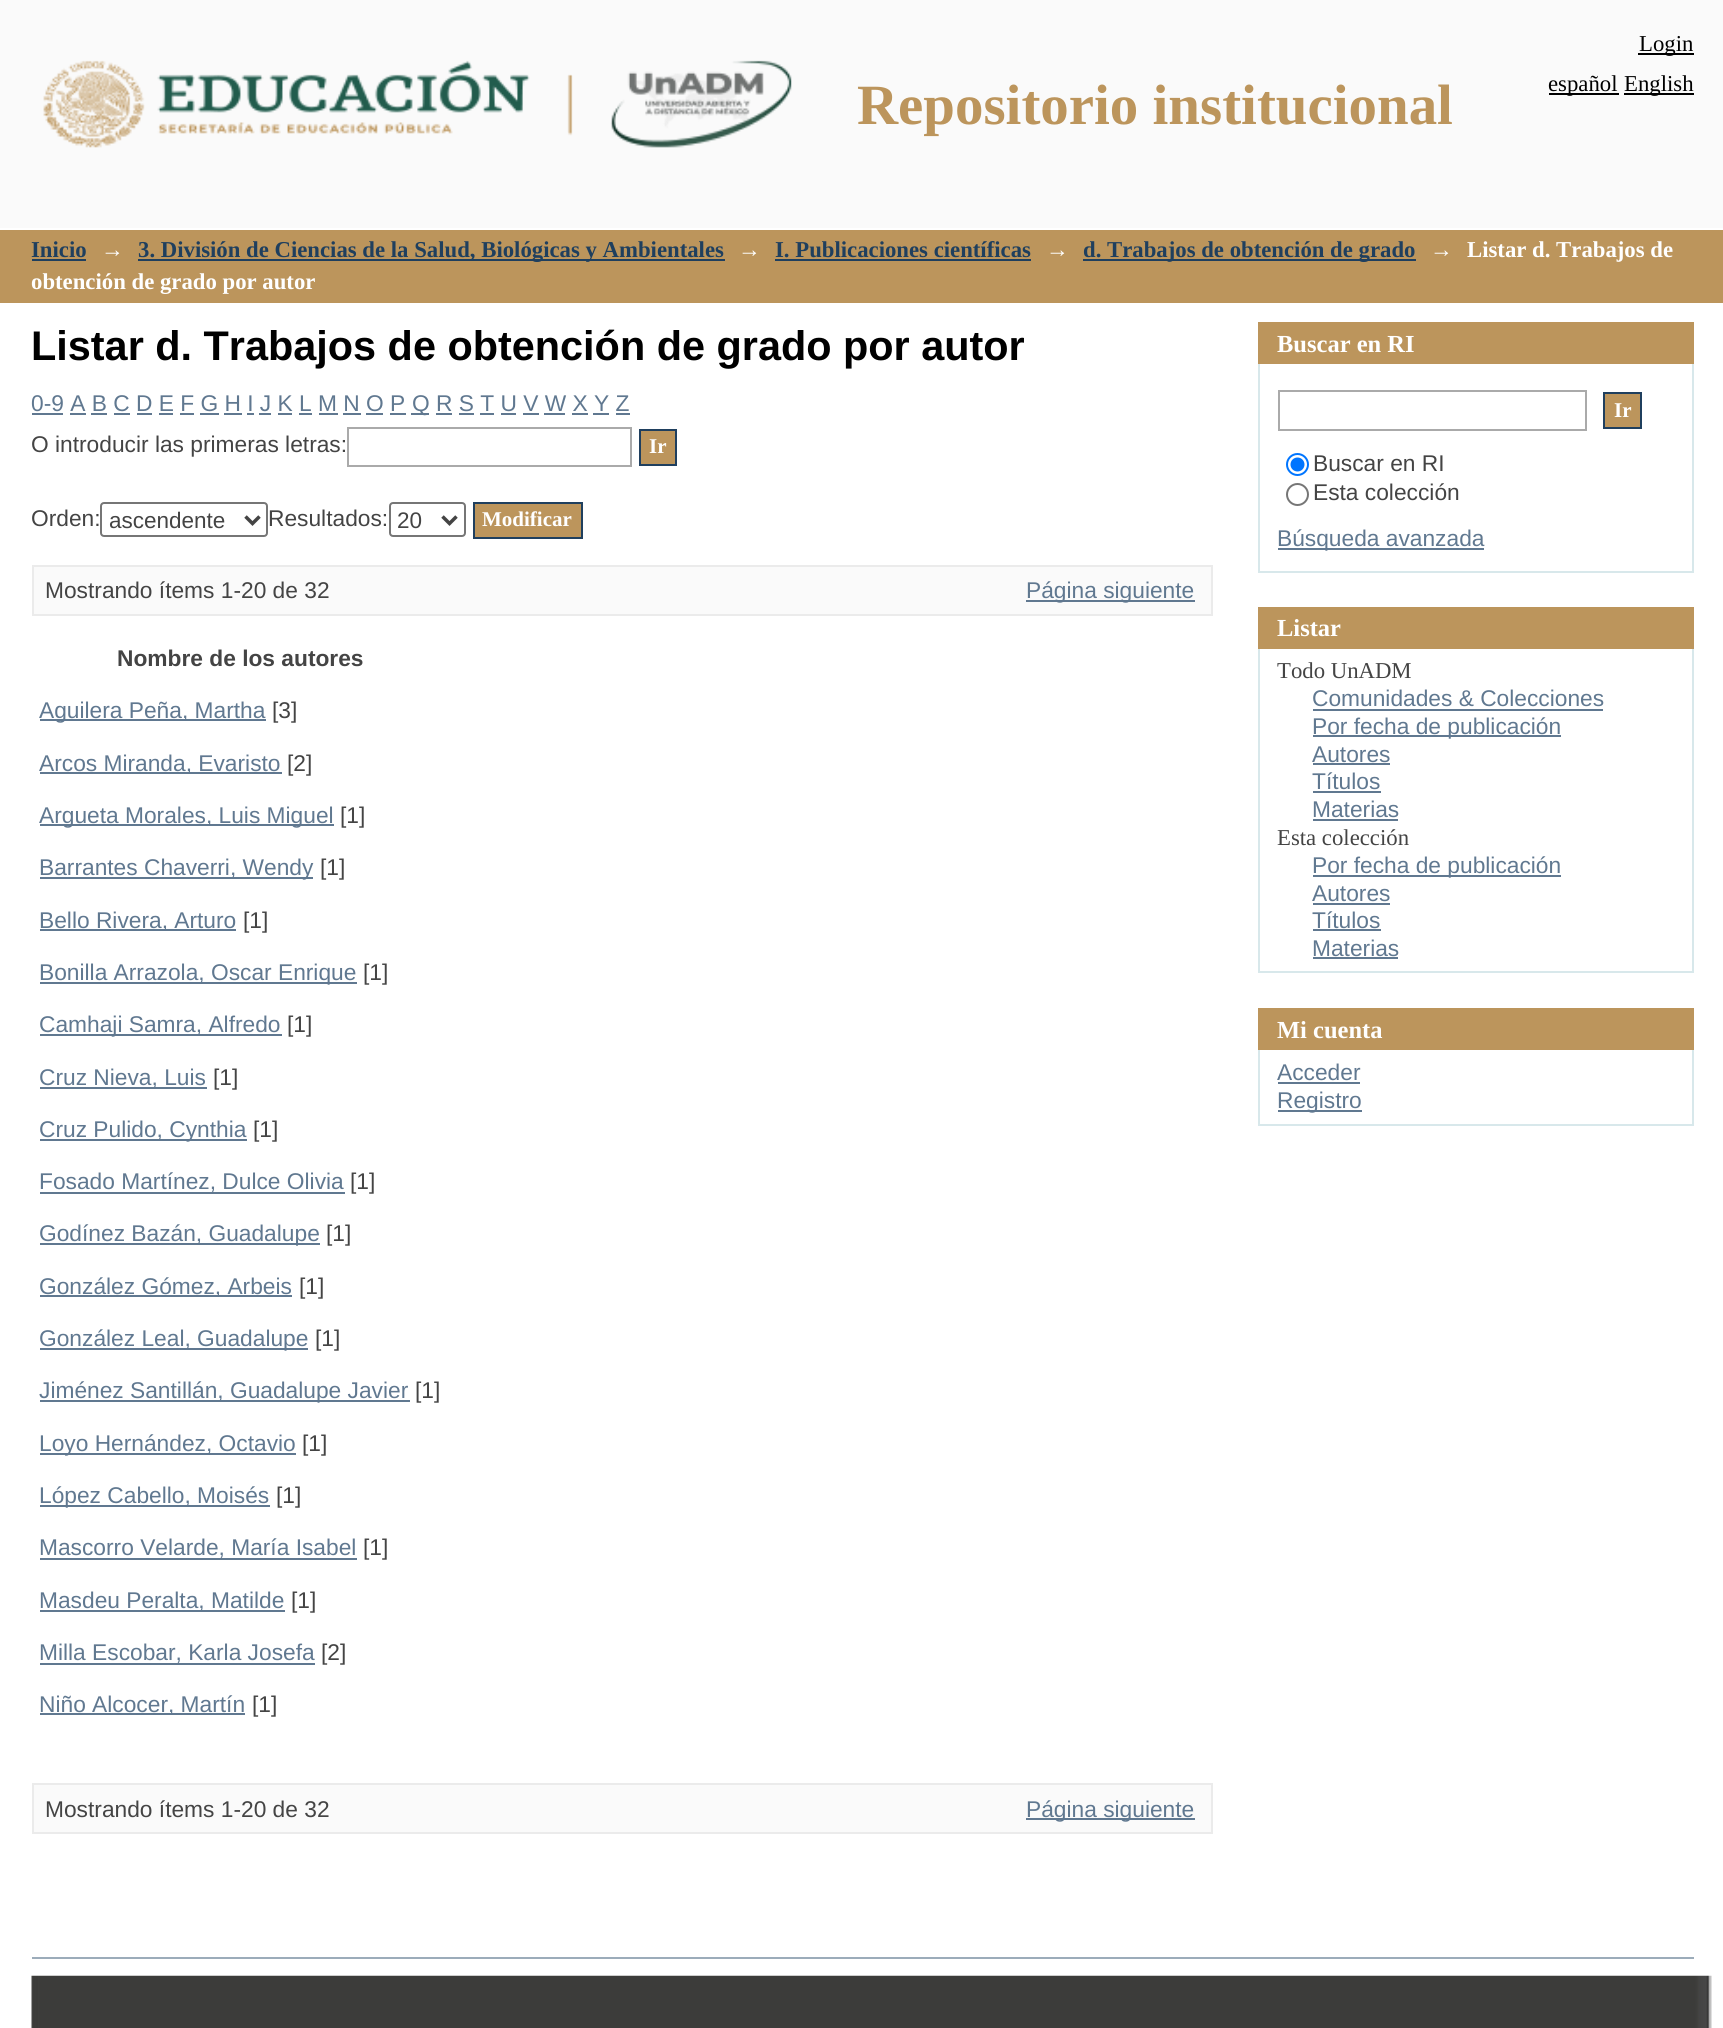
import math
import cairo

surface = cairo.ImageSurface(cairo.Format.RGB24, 1723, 2028)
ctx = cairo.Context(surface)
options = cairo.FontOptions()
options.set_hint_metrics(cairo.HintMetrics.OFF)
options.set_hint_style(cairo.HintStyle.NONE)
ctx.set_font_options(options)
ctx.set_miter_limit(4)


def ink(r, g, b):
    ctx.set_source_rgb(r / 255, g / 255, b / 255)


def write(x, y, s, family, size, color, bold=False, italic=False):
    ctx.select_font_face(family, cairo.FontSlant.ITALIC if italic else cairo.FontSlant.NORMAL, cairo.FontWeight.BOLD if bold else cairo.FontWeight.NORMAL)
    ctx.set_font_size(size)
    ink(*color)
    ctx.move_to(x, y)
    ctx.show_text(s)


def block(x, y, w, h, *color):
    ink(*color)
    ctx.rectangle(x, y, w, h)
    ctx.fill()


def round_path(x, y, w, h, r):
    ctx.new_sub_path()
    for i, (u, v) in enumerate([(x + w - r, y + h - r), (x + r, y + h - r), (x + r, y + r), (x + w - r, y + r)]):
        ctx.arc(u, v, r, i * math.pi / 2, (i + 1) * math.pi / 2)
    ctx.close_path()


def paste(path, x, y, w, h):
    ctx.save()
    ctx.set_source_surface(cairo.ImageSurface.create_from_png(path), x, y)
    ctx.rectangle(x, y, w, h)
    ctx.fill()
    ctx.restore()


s1 = dict(family="Liberation Serif", size=22.75, color=(0, 0, 0))
s2 = dict(family="Liberation Serif", size=56.9, color=(188, 149, 92), bold=True)
s3 = dict(family="Liberation Serif", size=22.75, color=(31, 63, 94), bold=True)
s4 = dict(family="Liberation Serif", size=22.75, color=(255, 255, 255), bold=True)
s5 = dict(family="Liberation Sans", size=41.4, color=(0, 0, 0), bold=True)
s6 = dict(family="Liberation Sans", size=22.75, color=(96, 120, 144))
s7 = dict(family="Liberation Sans", size=22.75, color=(68, 68, 68))
s8 = dict(family="Liberation Serif", size=21, color=(255, 255, 255), bold=True)
s9 = dict(family="Liberation Sans", size=22.5, color=(68, 68, 68))
s10 = dict(family="Liberation Sans", size=22.75, color=(68, 68, 68), bold=True)
s11 = dict(family="Liberation Serif", size=24.5, color=(255, 255, 255), bold=True)
s12 = dict(family="Liberation Serif", size=22.75, color=(68, 68, 68))

ink(255, 255, 255)
ctx.paint()
block(0, 0, 1723, 228, 250, 250, 250)
block(1638, 53, 56, 2, 0, 0, 0)
write(1639, 51, "Login", **s1)
paste("pic1.png", 43, 60, 749, 88)
write(857, 124, "Repositorio institucional", **s2)
block(1549, 93, 70, 2, 0, 0, 0)
write(1548, 91, "español", **s1)
block(1624, 93, 70, 2, 0, 0, 0)
write(1624, 91, "English", **s1)
block(0, 230, 1723, 73, 188, 149, 92)
write(31, 257, "Inicio", **s3)
block(32, 259, 54, 2, 31, 63, 94)
write(101, 257, "→", **s4)
block(138, 259, 587, 2, 31, 63, 94)
write(138, 257, "3. División de Ciencias de la Salud, Biológicas y Ambientales", **s3)
write(738, 257, "→", **s4)
write(775, 257, "I. Publicaciones científicas", **s3)
block(775, 259, 256, 2, 31, 63, 94)
write(1046, 257, "→", **s4)
block(1083, 259, 333, 2, 31, 63, 94)
write(1083, 257, "d. Trabajos de obtención de grado", **s3)
write(1430, 257, "→", **s4)
write(1467, 257, "Listar d. Trabajos de", **s4)
write(31, 289, "obtención de grado por autor", **s4)
write(31, 360, "Listar d. Trabajos de obtención de grado por autor", **s5)
write(31, 411, "0-9 A B C D E F G H I J K L M N O P", **s6)
block(32, 413, 31, 2, 96, 120, 144)
block(411, 413, 18, 2, 96, 120, 144)
write(412, 411, "Q R S T U V W X Y Z", **s6)
block(70, 413, 16, 2, 96, 120, 144)
block(91, 413, 16, 2, 96, 120, 144)
block(114, 413, 16, 2, 96, 120, 144)
block(137, 413, 15, 2, 96, 120, 144)
block(159, 413, 14, 2, 96, 120, 144)
block(180, 413, 14, 2, 96, 120, 144)
block(200, 413, 19, 2, 96, 120, 144)
block(224, 413, 18, 2, 96, 120, 144)
block(247, 413, 7, 2, 96, 120, 144)
block(259, 413, 12, 2, 96, 120, 144)
block(278, 413, 14, 2, 96, 120, 144)
block(299, 413, 13, 2, 96, 120, 144)
block(319, 413, 19, 2, 96, 120, 144)
block(343, 413, 18, 2, 96, 120, 144)
block(366, 413, 17, 2, 96, 120, 144)
block(390, 413, 16, 2, 96, 120, 144)
block(436, 413, 16, 2, 96, 120, 144)
block(459, 413, 15, 2, 96, 120, 144)
block(480, 413, 14, 2, 96, 120, 144)
block(501, 413, 15, 2, 96, 120, 144)
block(523, 413, 16, 2, 96, 120, 144)
block(544, 413, 21, 2, 96, 120, 144)
block(572, 413, 16, 2, 96, 120, 144)
block(593, 413, 16, 2, 96, 120, 144)
block(616, 413, 14, 2, 96, 120, 144)
write(31, 452, "O introducir las primeras letras:", **s7)
ctx.rectangle(348, 428, 283, 38)
ink(170, 170, 170)
ctx.stroke()
ink(188, 149, 92)
ctx.rectangle(640, 430, 36, 35)
ctx.fill_preserve()
ink(31, 63, 94)
ctx.stroke()
write(649, 453, "Ir", **s8)
write(31, 526, "Orden:", **s7)
round_path(101, 503, 166, 33, 3)
ink(118, 118, 118)
ctx.stroke()
ctx.new_path()
ctx.move_to(245.5, 516.5)
ctx.line_to(252.5, 523.5)
ctx.line_to(259.5, 516.5)
ink(68, 68, 68)
ctx.set_line_width(3.5)
ctx.stroke()
write(109, 528, "ascendente", **s9)
write(268, 526, "Resultados:", **s7)
round_path(390, 503, 75, 33, 3)
ink(118, 118, 118)
ctx.set_line_width(2)
ctx.stroke()
ctx.new_path()
ctx.move_to(442.5, 516.5)
ctx.line_to(449.5, 523.5)
ctx.line_to(456.5, 516.5)
ink(68, 68, 68)
ctx.set_line_width(3.5)
ctx.stroke()
write(397, 528, "20", **s9)
ink(188, 149, 92)
ctx.rectangle(474, 503, 108, 35)
ctx.fill_preserve()
ink(31, 63, 94)
ctx.set_line_width(2)
ctx.stroke()
write(482, 526, "Modificar", **s8)
ink(250, 250, 250)
ctx.rectangle(33, 566, 1179, 49)
ctx.fill_preserve()
ink(235, 235, 235)
ctx.stroke()
write(45, 598, "Mostrando ítems 1-20 de 32", **s7)
block(1026, 600, 169, 2, 96, 120, 144)
write(1026, 598, "Página siguiente", **s6)
write(117, 666, "Nombre de los autores", **s10)
block(40, 719, 226, 2, 96, 120, 144)
write(39, 718, "Aguilera Peña, Martha", **s6)
write(272, 718, "[3]", **s7)
block(40, 772, 242, 2, 96, 120, 144)
write(39, 771, "Arcos Miranda, Evaristo", **s6)
write(287, 771, "[2]", **s7)
block(40, 824, 294, 2, 96, 120, 144)
write(39, 823, "Argueta Morales, Luis Miguel", **s6)
write(340, 823, "[1]", **s7)
block(40, 877, 273, 2, 96, 120, 144)
write(39, 875, "Barrantes Chaverri, Wendy", **s6)
write(320, 875, "[1]", **s7)
block(40, 929, 196, 2, 96, 120, 144)
write(39, 928, "Bello Rivera, Arturo", **s6)
write(243, 928, "[1]", **s7)
block(40, 982, 317, 2, 96, 120, 144)
write(39, 980, "Bonilla Arrazola, Oscar Enrique", **s6)
write(363, 980, "[1]", **s7)
block(40, 1034, 242, 2, 96, 120, 144)
write(39, 1032, "Camhaji Samra, Alfredo", **s6)
write(287, 1032, "[1]", **s7)
block(40, 1087, 167, 2, 96, 120, 144)
write(39, 1085, "Cruz Nieva, Luis", **s6)
write(213, 1085, "[1]", **s7)
block(40, 1139, 207, 2, 96, 120, 144)
write(39, 1137, "Cruz Pulido, Cynthia", **s6)
write(253, 1137, "[1]", **s7)
write(39, 1189, "Fosado Martínez, Dulce Olivia", **s6)
block(40, 1192, 305, 2, 96, 120, 144)
write(350, 1189, "[1]", **s7)
block(40, 1243, 280, 2, 96, 120, 144)
write(39, 1241, "Godínez Bazán, Guadalupe", **s6)
write(326, 1241, "[1]", **s7)
block(40, 1295, 252, 2, 96, 120, 144)
write(39, 1294, "González Gómez, Arbeis", **s6)
write(299, 1294, "[1]", **s7)
block(40, 1348, 268, 2, 96, 120, 144)
write(39, 1346, "González Leal, Guadalupe", **s6)
write(315, 1346, "[1]", **s7)
block(40, 1400, 370, 2, 96, 120, 144)
write(39, 1398, "Jiménez Santillán, Guadalupe Javier", **s6)
write(415, 1398, "[1]", **s7)
block(40, 1453, 256, 2, 96, 120, 144)
write(39, 1451, "Loyo Hernández, Octavio", **s6)
write(302, 1451, "[1]", **s7)
block(40, 1505, 230, 2, 96, 120, 144)
write(39, 1503, "López Cabello, Moisés", **s6)
write(276, 1503, "[1]", **s7)
write(39, 1555, "Mascorro Velarde, María Isabel", **s6)
block(40, 1558, 317, 2, 96, 120, 144)
write(363, 1555, "[1]", **s7)
block(40, 1610, 245, 2, 96, 120, 144)
write(39, 1608, "Masdeu Peralta, Matilde", **s6)
write(291, 1608, "[1]", **s7)
write(39, 1660, "Milla Escobar, Karla Josefa", **s6)
block(40, 1663, 275, 2, 96, 120, 144)
write(321, 1660, "[2]", **s7)
block(40, 1713, 205, 2, 96, 120, 144)
write(39, 1712, "Niño Alcocer, Martín", **s6)
write(252, 1712, "[1]", **s7)
ink(250, 250, 250)
ctx.rectangle(33, 1784, 1179, 49)
ctx.fill_preserve()
ink(235, 235, 235)
ctx.stroke()
write(45, 1817, "Mostrando ítems 1-20 de 32", **s7)
block(1026, 1818, 169, 2, 96, 120, 144)
write(1026, 1817, "Página siguiente", **s6)
block(1258, 322, 436, 42, 188, 149, 92)
write(1277, 352, "Buscar en RI", **s11)
block(1692, 364, 2, 208, 216, 232, 235)
block(1258, 571, 436, 2, 216, 232, 235)
block(1258, 364, 2, 208, 216, 232, 235)
ctx.rectangle(1279, 391, 307, 39)
ink(170, 170, 170)
ctx.stroke()
ink(188, 149, 92)
ctx.rectangle(1604, 393, 37, 35)
ctx.fill_preserve()
ink(31, 63, 94)
ctx.stroke()
write(1614, 417, "Ir", **s8)
ctx.new_path()
ctx.arc(1297.5, 464.5, 10.5, 0, 2 * math.pi)
ink(0, 117, 255)
ctx.stroke()
ctx.arc(1297.5, 464.5, 7, 0, 2 * math.pi)
ctx.fill()
write(1313, 471, "Buscar en RI", **s7)
ctx.new_path()
ctx.arc(1297.5, 494.5, 10.5, 0, 2 * math.pi)
ink(118, 118, 118)
ctx.stroke()
write(1313, 500, "Esta colección", **s7)
block(1278, 548, 206, 2, 96, 120, 144)
write(1277, 546, "Búsqueda avanzada", **s6)
block(1258, 607, 436, 42, 188, 149, 92)
write(1277, 636, "Listar", **s11)
block(1692, 649, 2, 324, 216, 232, 235)
block(1258, 971, 436, 2, 216, 232, 235)
block(1258, 649, 2, 324, 216, 232, 235)
write(1277, 678, "Todo UnADM", **s12)
write(1312, 706, "Comunidades & Colecciones", **s6)
block(1313, 709, 290, 2, 96, 120, 144)
block(1313, 735, 248, 2, 96, 120, 144)
write(1312, 734, "Por fecha de publicación", **s6)
write(1312, 762, "Autores", **s6)
block(1313, 763, 77, 2, 96, 120, 144)
write(1312, 789, "Títulos", **s6)
block(1313, 791, 68, 2, 96, 120, 144)
write(1312, 817, "Materias", **s6)
block(1313, 819, 85, 2, 96, 120, 144)
write(1277, 845, "Esta colección", **s12)
block(1313, 875, 248, 2, 96, 120, 144)
write(1312, 873, "Por fecha de publicación", **s6)
write(1312, 901, "Autores", **s6)
block(1313, 903, 77, 2, 96, 120, 144)
write(1312, 928, "Títulos", **s6)
block(1313, 929, 68, 2, 96, 120, 144)
write(1312, 956, "Materias", **s6)
block(1313, 957, 85, 2, 96, 120, 144)
block(1258, 1008, 436, 42, 188, 149, 92)
write(1277, 1038, "Mi cuenta", **s11)
block(1692, 1050, 2, 75, 216, 232, 235)
block(1258, 1124, 436, 2, 216, 232, 235)
block(1258, 1050, 2, 75, 216, 232, 235)
write(1277, 1080, "Acceder", **s6)
block(1278, 1082, 82, 2, 96, 120, 144)
block(1278, 1110, 84, 2, 96, 120, 144)
write(1277, 1108, "Registro", **s6)
block(32, 1957, 1662, 2, 156, 172, 186)
paste("pic2.png", 31, 1975, 1681, 53)
surface.write_to_png("screenshot.png")
